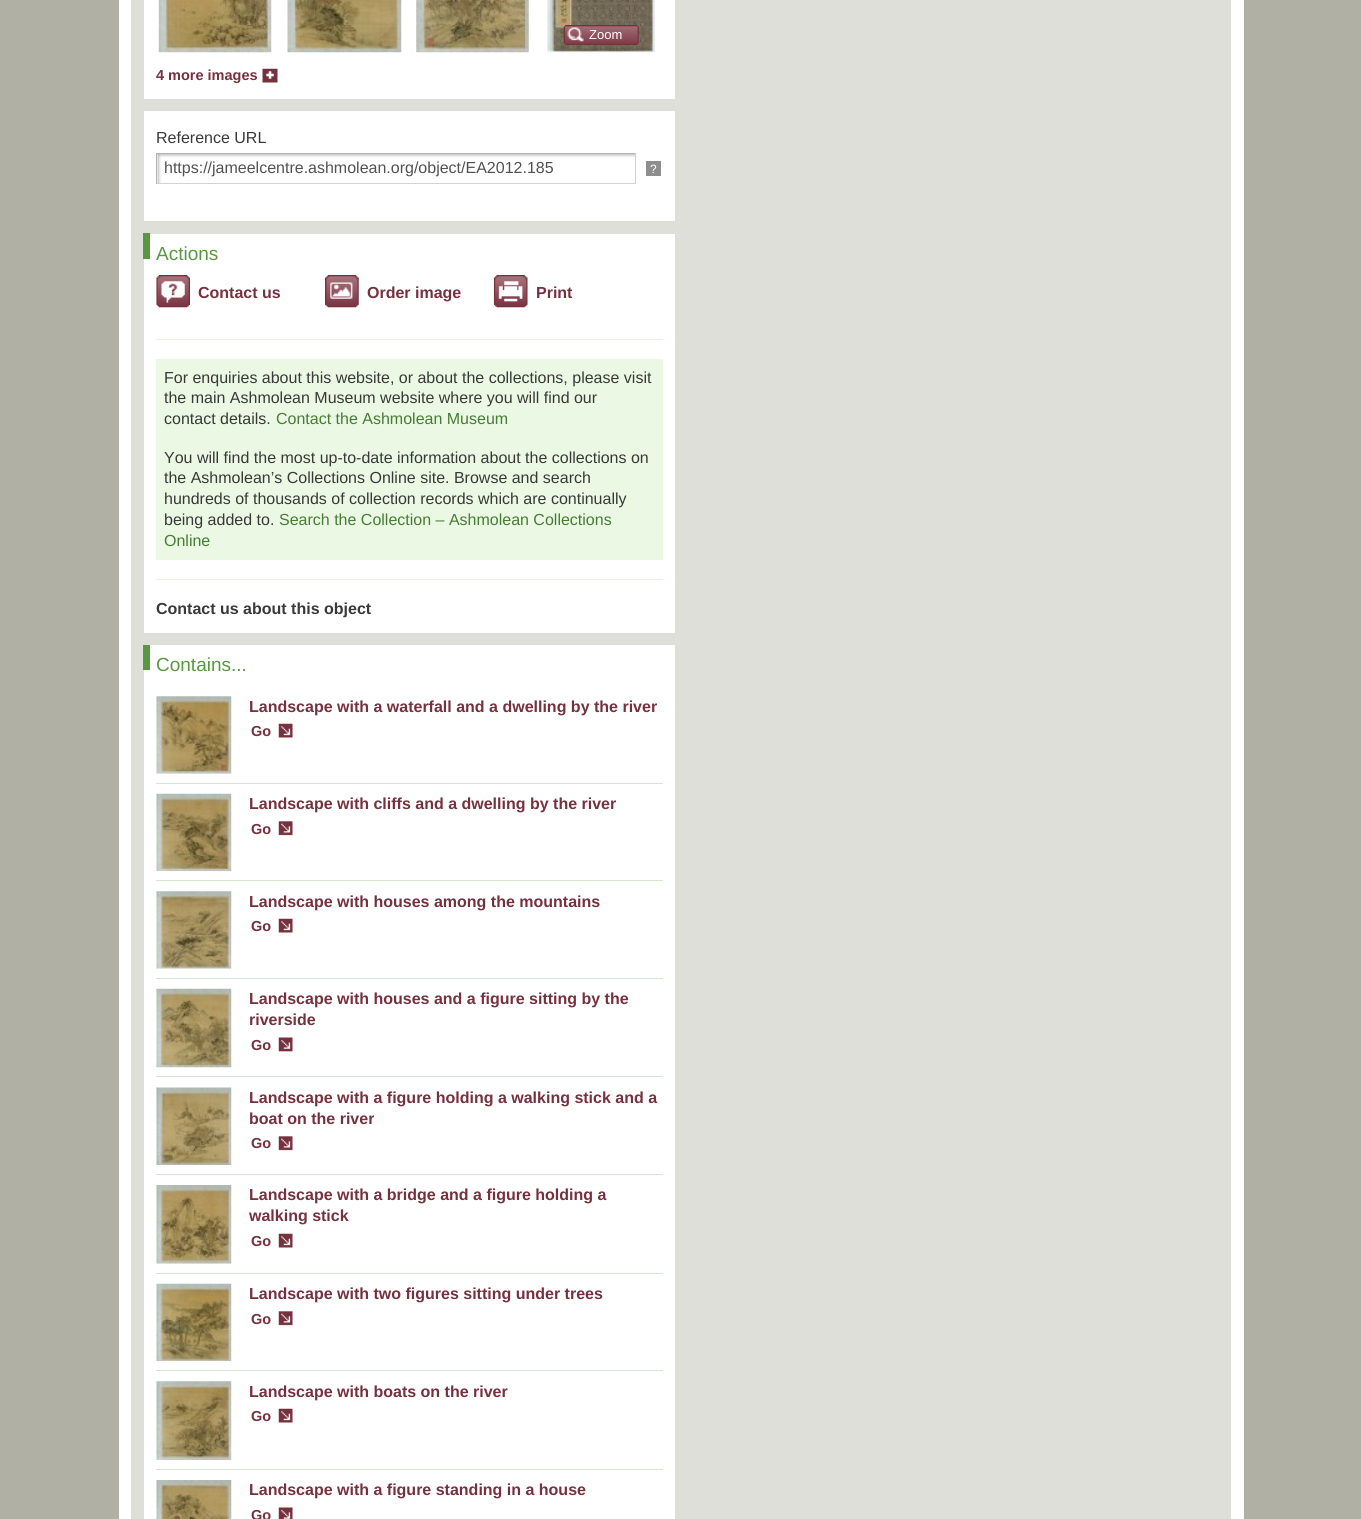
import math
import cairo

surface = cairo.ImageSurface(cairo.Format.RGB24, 1361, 1519)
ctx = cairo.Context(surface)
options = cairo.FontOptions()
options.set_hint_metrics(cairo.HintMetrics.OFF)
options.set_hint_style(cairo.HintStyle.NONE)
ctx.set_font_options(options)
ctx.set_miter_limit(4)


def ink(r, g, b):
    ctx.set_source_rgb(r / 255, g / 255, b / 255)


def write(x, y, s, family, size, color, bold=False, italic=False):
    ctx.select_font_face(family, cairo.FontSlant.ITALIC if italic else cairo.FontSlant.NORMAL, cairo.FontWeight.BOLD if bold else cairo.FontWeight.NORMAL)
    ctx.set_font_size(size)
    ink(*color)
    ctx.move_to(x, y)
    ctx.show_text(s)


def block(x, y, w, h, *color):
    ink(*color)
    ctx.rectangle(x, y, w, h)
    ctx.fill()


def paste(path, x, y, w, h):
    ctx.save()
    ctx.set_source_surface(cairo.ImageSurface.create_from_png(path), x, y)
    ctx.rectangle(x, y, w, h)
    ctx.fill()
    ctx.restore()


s1 = dict(family="Liberation Sans", size=13, color=(255, 255, 255))
s2 = dict(family="Liberation Sans", size=14.5, color=(118, 49, 63), bold=True)
s3 = dict(family="Liberation Sans", size=16, color=(56, 57, 56))
s4 = dict(family="Liberation Sans", size=16, color=(82, 82, 82))
s5 = dict(family="Liberation Sans", size=12, color=(255, 255, 255))
s6 = dict(family="Liberation Sans", size=19, color=(88, 153, 64))
s7 = dict(family="Liberation Sans", size=16, color=(118, 49, 63), bold=True)
s8 = dict(family="Liberation Sans", size=16, color=(70, 125, 51))
s9 = dict(family="Liberation Sans", size=16, color=(56, 57, 56), bold=True)

ink(176, 176, 165)
ctx.paint()
block(119, 0, 1125, 1519, 255, 255, 255)
block(131, 0, 1100, 1519, 223, 223, 218)
block(144, 0, 531, 1519, 255, 255, 255)
block(144, 99, 531, 12, 223, 223, 218)
paste("pic1.png", 158, 0, 114, 53)
paste("pic2.png", 287, 0, 115, 53)
paste("pic3.png", 416, 0, 113, 53)
paste("pic4.png", 547, 0, 108, 53)
paste("pic5.png", 563, 25, 76, 20)
paste("pic6.png", 567, 27, 17, 15)
write(589, 39, "Zoom", **s1)
write(156, 80, "4 more images", **s2)
paste("pic7.png", 262, 68, 16, 15)
block(144, 221, 531, 13, 223, 223, 218)
write(156, 143, "Reference URL", **s3)
paste("pic8.png", 157, 153, 480, 31)
block(156, 153, 480, 1, 180, 180, 180)
block(635, 153, 1, 31, 211, 211, 211)
block(156, 183, 480, 1, 211, 211, 211)
block(156, 153, 1, 31, 180, 180, 180)
write(164, 173, "https://jameelcentre.ashmolean.org/object/EA2012.185", **s4)
block(646, 161, 15, 15, 142, 142, 142)
write(650, 173, "?", **s5)
block(143, 233, 7, 26, 88, 153, 64)
block(144, 633, 531, 12, 223, 223, 218)
write(156, 260, "Actions", **s6)
paste("pic9.png", 156, 275, 34, 33)
write(198, 298, "Contact us", **s7)
paste("pic10.png", 325, 275, 34, 33)
write(367, 298, "Order image", **s7)
paste("pic11.png", 493, 275, 35, 33)
write(536, 298, "Print", **s7)
block(156, 339, 507, 1, 227, 245, 219)
block(156, 359, 507, 201, 234, 248, 228)
write(164, 383, "For enquiries about this website, or about the collections, please visit", **s3)
write(164, 403, "the main Ashmolean Museum website where you will find our", **s3)
write(164, 424, "contact details.", **s3)
write(276, 424, "Contact the Ashmolean Museum", **s8)
write(164, 463, "You will find the most up-to-date information about the collections on", **s3)
write(164, 483, "the Ashmolean’s Collections Online site. Browse and search", **s3)
write(164, 504, "hundreds of thousands of collection records which are continually", **s3)
write(164, 525, "being added to.", **s3)
write(279, 525, "Search the Collection – Ashmolean Collections", **s8)
write(164, 546, "Online", **s8)
block(156, 579, 507, 1, 227, 245, 219)
write(156, 614, "Contact us about this object", **s9)
block(143, 645, 7, 25, 88, 153, 64)
write(156, 671, "Contains...", **s6)
paste("pic12.png", 156, 696, 76, 78)
write(249, 712, "Landscape with a waterfall and a dwelling by the river", **s7)
write(251, 736, "Go", **s2)
paste("pic13.png", 278, 723, 15, 15)
block(156, 783, 507, 1, 213, 229, 207)
paste("pic14.png", 156, 793, 76, 79)
write(249, 809, "Landscape with cliffs and a dwelling by the river", **s7)
write(251, 834, "Go", **s2)
paste("pic15.png", 278, 821, 15, 15)
block(156, 880, 507, 1, 213, 229, 207)
paste("pic16.png", 156, 891, 76, 78)
write(249, 907, "Landscape with houses among the mountains", **s7)
write(251, 931, "Go", **s2)
paste("pic13.png", 278, 918, 15, 15)
block(156, 978, 507, 1, 213, 229, 207)
paste("pic17.png", 156, 988, 76, 80)
write(249, 1004, "Landscape with houses and a figure sitting by the", **s7)
write(249, 1025, "riverside", **s7)
write(251, 1050, "Go", **s2)
paste("pic18.png", 278, 1037, 15, 15)
block(156, 1076, 507, 1, 213, 229, 207)
paste("pic19.png", 156, 1087, 76, 78)
write(249, 1103, "Landscape with a figure holding a walking stick and a", **s7)
write(249, 1124, "boat on the river", **s7)
write(251, 1148, "Go", **s2)
paste("pic15.png", 278, 1136, 15, 15)
block(156, 1174, 507, 1, 213, 229, 207)
paste("pic20.png", 156, 1185, 76, 79)
write(249, 1200, "Landscape with a bridge and a figure holding a", **s7)
write(249, 1221, "walking stick", **s7)
write(251, 1246, "Go", **s2)
paste("pic13.png", 278, 1233, 15, 15)
block(156, 1273, 507, 1, 213, 229, 207)
paste("pic21.png", 156, 1283, 76, 79)
write(249, 1299, "Landscape with two figures sitting under trees", **s7)
write(251, 1324, "Go", **s2)
paste("pic15.png", 278, 1311, 15, 15)
block(156, 1370, 507, 1, 213, 229, 207)
paste("pic22.png", 156, 1381, 76, 79)
write(249, 1397, "Landscape with boats on the river", **s7)
write(251, 1421, "Go", **s2)
paste("pic13.png", 278, 1408, 15, 15)
block(156, 1469, 507, 1, 213, 229, 207)
paste("pic23.png", 156, 1480, 76, 39)
write(249, 1495, "Landscape with a figure standing in a house", **s7)
write(251, 1520, "Go", **s2)
paste("pic24.png", 278, 1507, 15, 12)
surface.write_to_png("screenshot.png")
